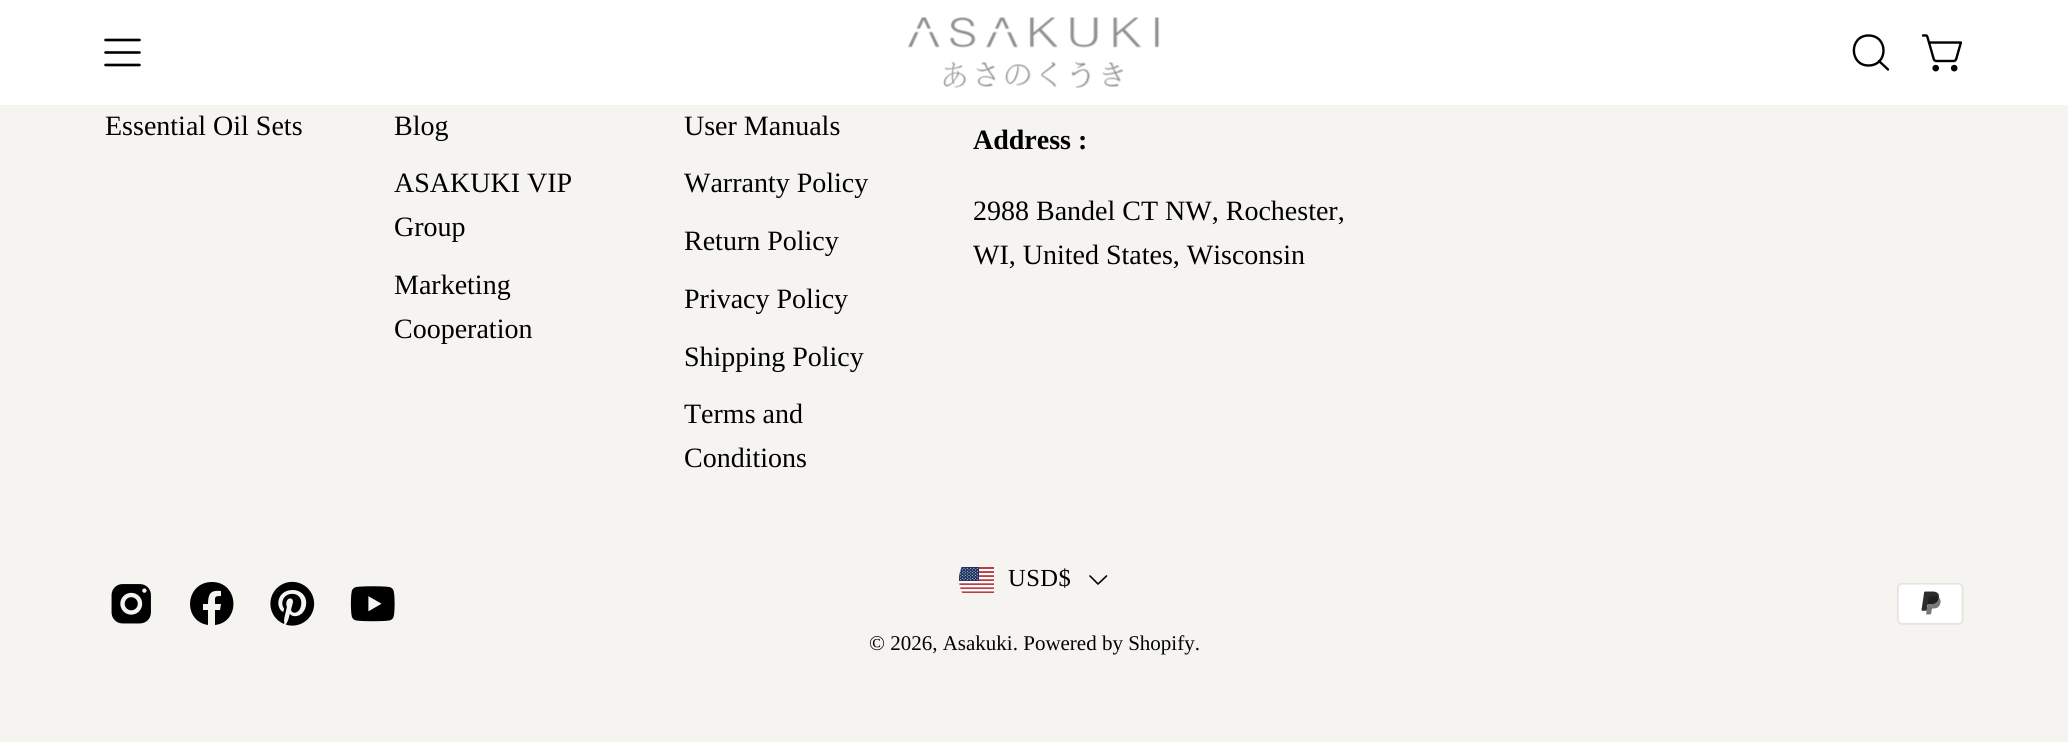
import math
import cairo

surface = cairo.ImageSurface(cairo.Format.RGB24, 2068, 742)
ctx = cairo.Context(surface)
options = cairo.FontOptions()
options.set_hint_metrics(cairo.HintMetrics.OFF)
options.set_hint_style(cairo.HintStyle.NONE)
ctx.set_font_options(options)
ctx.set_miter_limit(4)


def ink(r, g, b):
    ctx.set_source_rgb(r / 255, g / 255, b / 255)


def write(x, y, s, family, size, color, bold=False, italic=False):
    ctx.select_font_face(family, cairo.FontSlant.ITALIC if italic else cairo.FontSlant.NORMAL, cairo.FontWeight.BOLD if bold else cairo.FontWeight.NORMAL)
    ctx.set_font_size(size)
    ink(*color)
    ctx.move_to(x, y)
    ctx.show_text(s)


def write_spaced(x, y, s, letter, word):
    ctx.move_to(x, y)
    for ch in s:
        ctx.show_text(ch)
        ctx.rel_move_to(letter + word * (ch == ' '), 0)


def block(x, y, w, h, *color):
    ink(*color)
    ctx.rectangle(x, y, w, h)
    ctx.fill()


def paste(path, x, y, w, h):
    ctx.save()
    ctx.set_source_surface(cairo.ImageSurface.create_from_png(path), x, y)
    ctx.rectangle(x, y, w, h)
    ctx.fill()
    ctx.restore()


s1 = dict(family="Liberation Serif", size=28, color=(0, 0, 0))
s2 = dict(family="Liberation Serif", size=28, color=(0, 0, 0), bold=True)
s3 = dict(family="Liberation Serif", size=21, color=(0, 0, 0))

ink(245, 244, 240)
ctx.paint()
block(0, 0, 2068, 105, 255, 255, 255)
ctx.new_path()
ctx.move_to(105.5, 52.5)
ctx.line_to(139.5, 52.5)
ctx.move_to(105.5, 40)
ctx.line_to(139.5, 40)
ctx.move_to(105.5, 65)
ctx.line_to(139.5, 65)
ink(0, 0, 0)
ctx.set_line_width(2.6)
ctx.set_line_cap(cairo.LineCap.ROUND)
ctx.set_line_join(cairo.LineJoin.ROUND)
ctx.stroke()
paste("pic1.png", 908, 17, 252, 71)
ctx.new_path()
ctx.move_to(1868.5, 65.5)
ctx.curve_to(1888.5, 65.5, 1888.5, 35.5, 1868.5, 35.5)
ctx.curve_to(1849, 35.5, 1849, 65.5, 1868.5, 65.5)
ctx.close_path()
ctx.move_to(1879, 61)
ctx.line_to(1888, 69.5)
ctx.set_line_width(2.4)
ctx.stroke()
paste("pic2.png", 1922, 34, 41, 38)
write(105, 135, "Essential Oil Sets", **s1)
write(394, 135, "Blog", **s1)
write(394, 192, "ASAKUKI VIP", **s1)
write(394, 236, "Group", **s1)
write(394, 294, "Marketing", **s1)
write(394, 338, "Cooperation", **s1)
write(684, 135, "User Manuals", **s1)
write(684, 192, "Warranty Policy", **s1)
write(684, 250, "Return Policy", **s1)
write(684, 308, "Privacy Policy", **s1)
write(684, 366, "Shipping Policy", **s1)
write(684, 423, "Terms and", **s1)
write(684, 467, "Conditions", **s1)
write(973, 149, "Address :", **s2)
write(973, 220, "2988 Bandel CT NW, Rochester,", **s1)
write(973, 264, "WI, United States, Wisconsin", **s1)
paste("pic3.png", 111, 584, 40, 40)
ctx.new_path()
ctx.move_to(212, 582)
ctx.curve_to(185, 582, 182, 621, 208, 625)
ctx.line_to(208, 610)
ctx.line_to(203, 610)
ctx.line_to(203, 604)
ctx.line_to(208, 604)
ctx.curve_to(208, 593, 211, 590, 221, 591)
ctx.line_to(221, 596)
ctx.curve_to(214, 596, 215, 597, 215, 604)
ctx.line_to(221, 604)
ctx.line_to(220, 610)
ctx.line_to(215, 610)
ctx.line_to(215, 625)
ctx.curve_to(241, 622, 239, 582, 212, 582)
ctx.close_path()
ctx.fill()
paste("pic4.png", 270, 581, 45, 45)
paste("pic5.png", 350, 586, 45, 36)
paste("pic6.png", 959, 567, 35, 26)
ctx.set_font_size(24.5)
write_spaced(1008, 586, "USD$", 0.5, 0)
ctx.new_path()
ctx.move_to(1106.5, 576)
ctx.line_to(1098, 584)
ctx.line_to(1090, 576)
ctx.set_line_width(1.6)
ctx.stroke()
write(869, 650, "© 2026, Asakuki. Powered by Shopify.", **s3)
paste("pic7.png", 1897, 583, 67, 42)
surface.write_to_png("screenshot.png")
